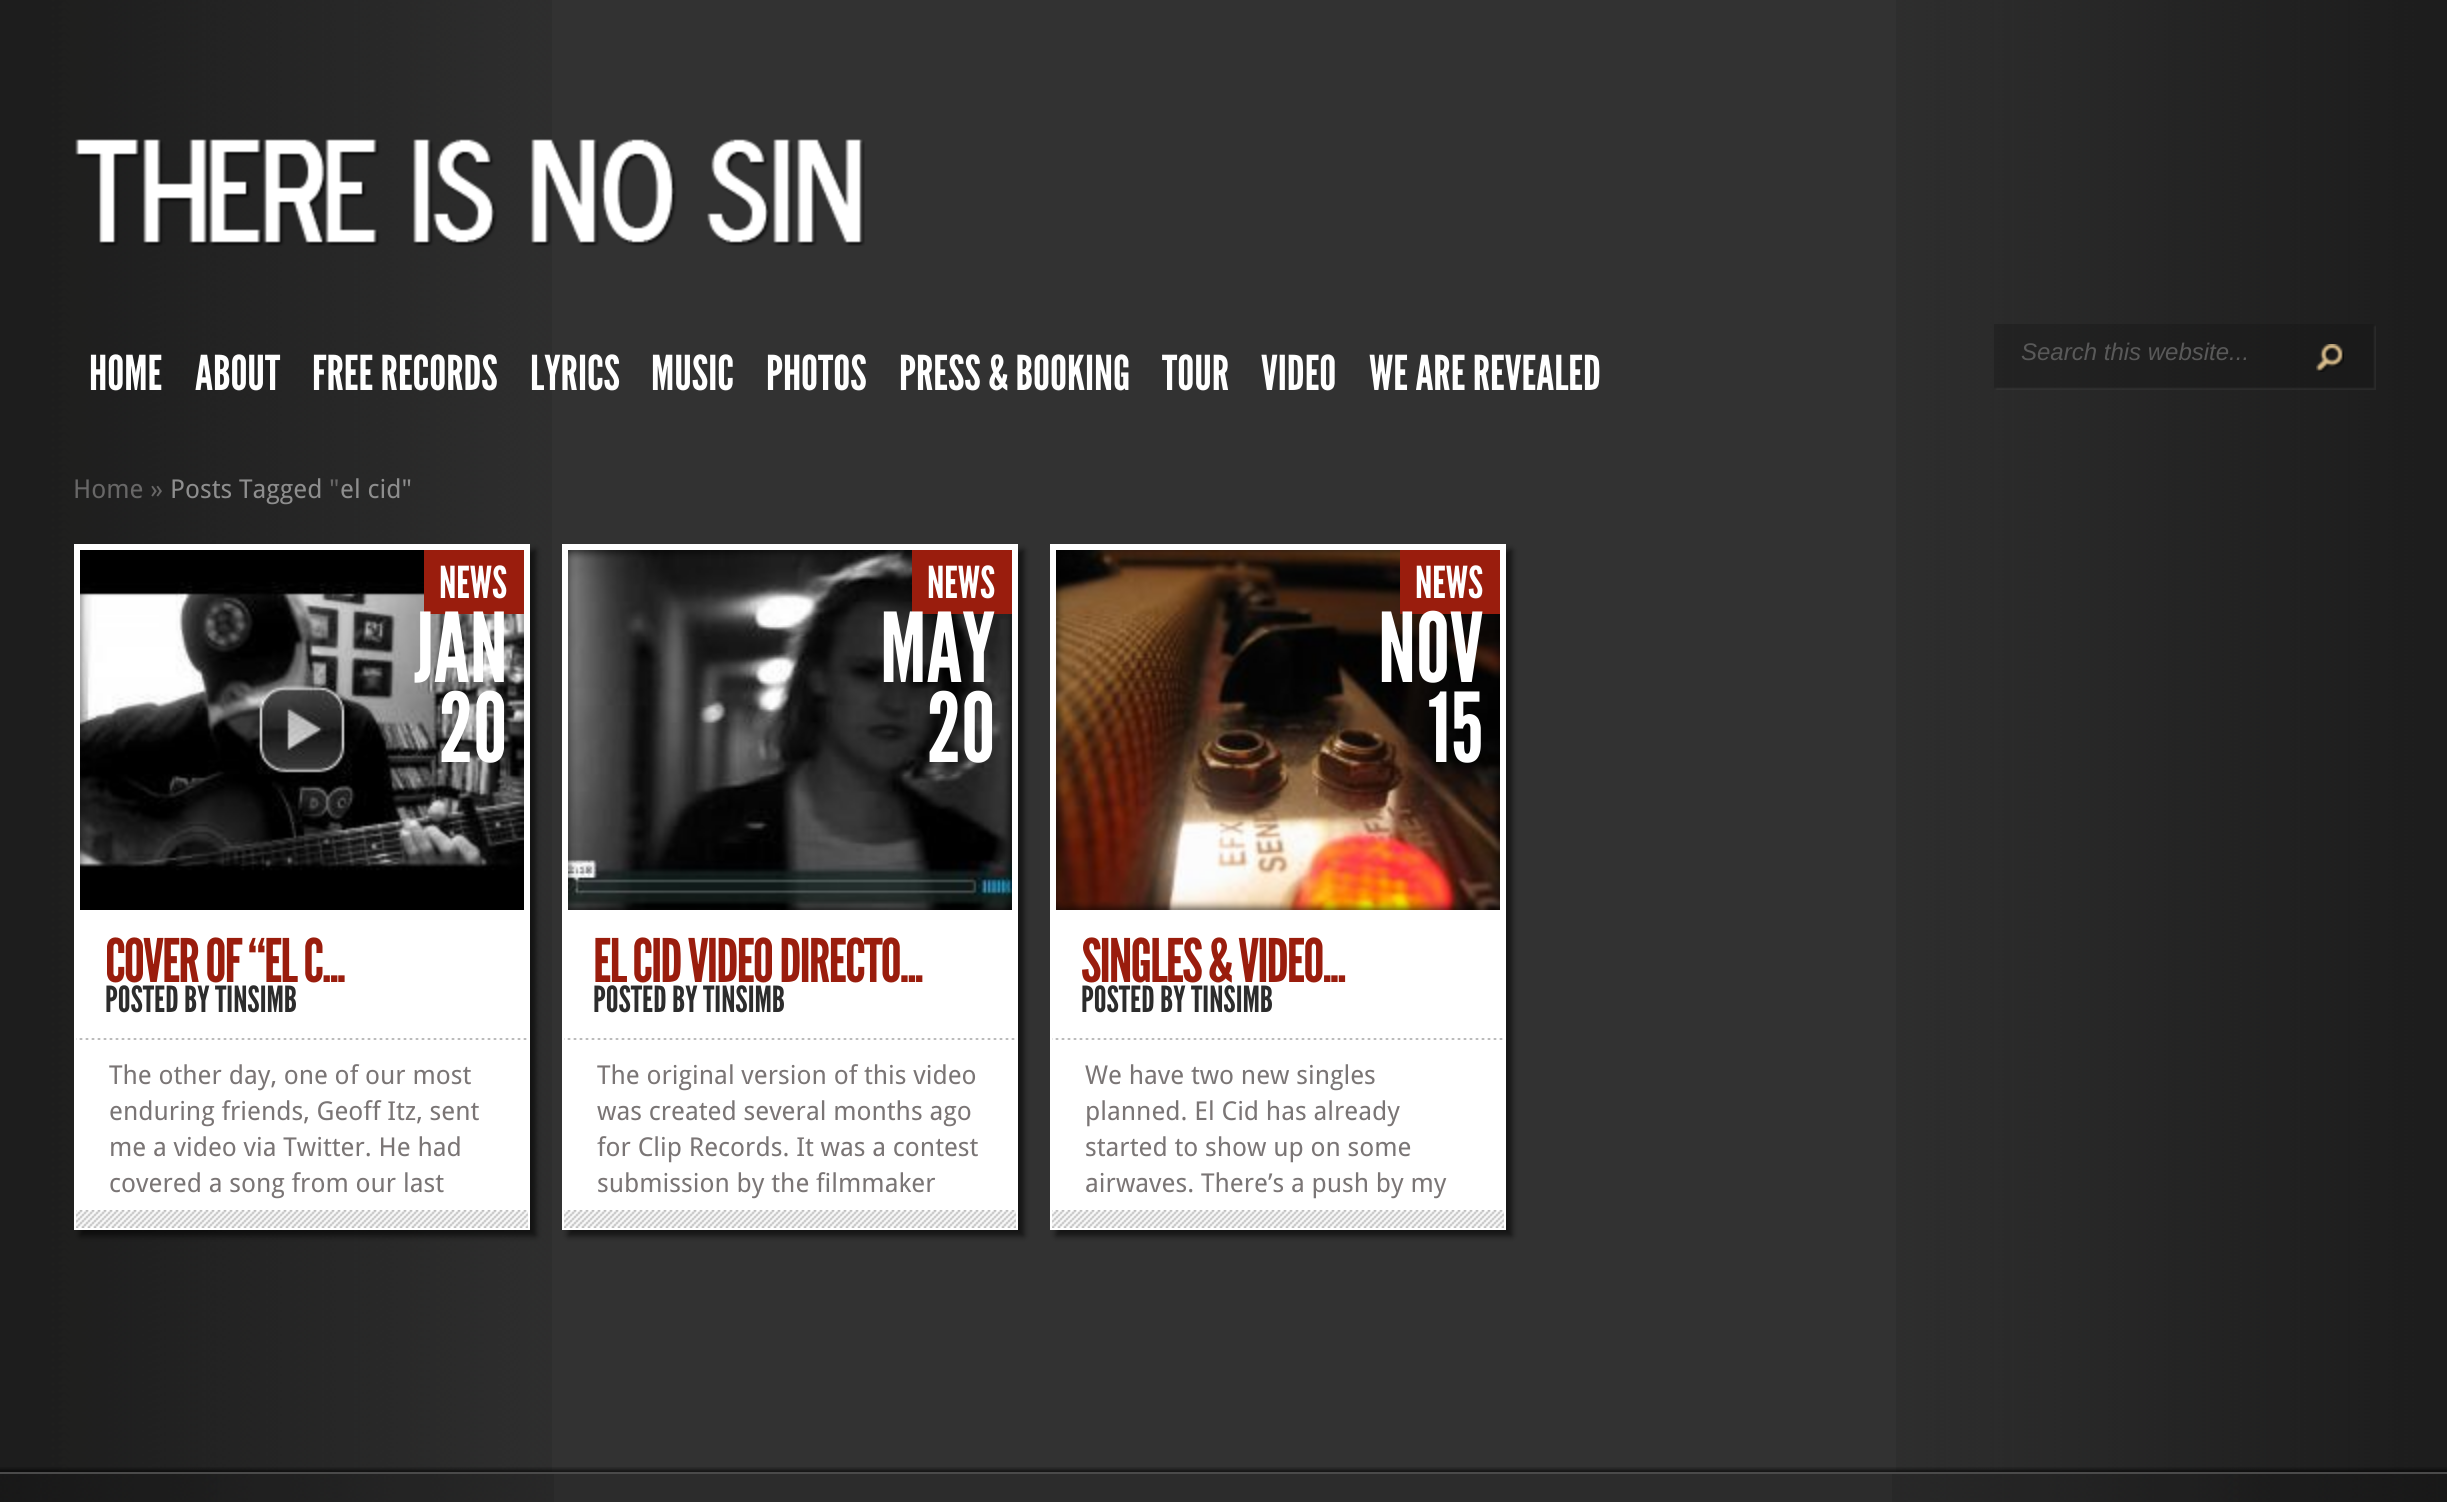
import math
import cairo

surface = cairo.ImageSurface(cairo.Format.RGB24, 2447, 1502)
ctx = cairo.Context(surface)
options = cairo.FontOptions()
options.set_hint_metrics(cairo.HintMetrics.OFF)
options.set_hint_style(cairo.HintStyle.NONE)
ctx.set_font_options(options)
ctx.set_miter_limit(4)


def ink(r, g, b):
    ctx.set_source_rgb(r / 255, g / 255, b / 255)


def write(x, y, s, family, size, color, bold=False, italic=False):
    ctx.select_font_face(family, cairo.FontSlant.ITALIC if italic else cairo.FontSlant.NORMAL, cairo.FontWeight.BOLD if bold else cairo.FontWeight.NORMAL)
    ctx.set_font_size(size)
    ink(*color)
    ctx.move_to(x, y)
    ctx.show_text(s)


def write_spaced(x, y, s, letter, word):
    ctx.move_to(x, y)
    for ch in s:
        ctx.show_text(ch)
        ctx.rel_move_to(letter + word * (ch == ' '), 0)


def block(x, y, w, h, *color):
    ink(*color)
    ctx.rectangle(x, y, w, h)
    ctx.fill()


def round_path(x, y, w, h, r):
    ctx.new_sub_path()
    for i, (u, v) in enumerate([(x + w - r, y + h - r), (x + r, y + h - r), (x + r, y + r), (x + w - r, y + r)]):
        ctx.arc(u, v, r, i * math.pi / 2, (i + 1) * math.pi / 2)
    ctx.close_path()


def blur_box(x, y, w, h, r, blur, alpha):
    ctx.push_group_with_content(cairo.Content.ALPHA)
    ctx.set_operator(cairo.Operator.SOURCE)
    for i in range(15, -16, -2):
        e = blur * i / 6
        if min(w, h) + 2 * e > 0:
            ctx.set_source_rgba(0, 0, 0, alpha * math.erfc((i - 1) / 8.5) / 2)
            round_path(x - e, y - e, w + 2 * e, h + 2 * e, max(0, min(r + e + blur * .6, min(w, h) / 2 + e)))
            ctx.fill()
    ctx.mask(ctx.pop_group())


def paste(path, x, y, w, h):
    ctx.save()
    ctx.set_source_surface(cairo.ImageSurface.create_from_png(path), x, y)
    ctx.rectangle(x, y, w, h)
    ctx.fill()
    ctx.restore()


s1 = dict(family="Liberation Sans", size=24, color=(89, 89, 89), italic=True)
s2 = dict(family="League Gothic", size=48, color=(255, 255, 255))
s3 = dict(family="Droid Sans", size=26, color=(104, 103, 103))
s4 = dict(family="Droid Sans", size=26, color=(142, 142, 142))
s5 = dict(family="League Gothic", size=44, color=(255, 255, 255))
s6 = dict(family="League Gothic", size=96, color=(255, 255, 255))
s7 = dict(family="League Gothic", size=36, color=(44, 44, 44))
s8 = dict(family="Droid Sans", size=26, color=(122, 117, 117))

ink(44, 44, 44)
ctx.paint()
block(552, 0, 1344, 1472, 50, 50, 50)
paste("pic1.png", 0, 0, 552, 1472)
paste("pic2.png", 1896, 0, 551, 1472)
paste("pic3.png", 75, 139, 790, 107)
paste("pic4.png", 1994, 324, 382, 66)
write(2021, 360, "Search this website...", **s1)
paste("pic5.png", 2316, 344, 28, 28)
write(89, 390, "HOME", **s2)
write(195, 390, "ABOUT", **s2)
write(312, 390, "FREE RECORDS", **s2)
write(530, 390, "LYRICS", **s2)
write(651, 390, "MUSIC", **s2)
write(766, 390, "PHOTOS", **s2)
write(899, 390, "PRESS & BOOKING", **s2)
write(1162, 390, "TOUR", **s2)
write(1261, 390, "VIDEO", **s2)
write(1369, 390, "WE ARE REVEALED", **s2)
write(73, 498, "Home »", **s3)
write(170, 498, "Posts Tagged", **s4)
write(329, 498, "\"", **s3)
write(340, 498, "el cid\"", **s4)
ink(0, 0, 0)
blur_box(80, 550, 456, 686, 0, 3, 0.6)
block(74, 544, 456, 686, 255, 255, 255)
paste("pic6.png", 80, 550, 444, 360)
paste("pic7.png", 80, 550, 444, 317)
block(424, 550, 100, 64, 154, 29, 13)
write(439, 598, "NEWS", **s5)
write(414, 682, "JAN", **s6)
write(439, 762, "20", **s6)
ctx.set_font_size(60)
ink(154, 29, 13)
write_spaced(105, 982, "COVER OF “EL C...", -2, 0)
write(105, 1012, "POSTED BY TINSIMB", **s7)
paste("pic8.png", 76, 1210, 452, 18)
paste("pic9.png", 76, 1038, 451, 2)
write(109, 1084, "The other day, one of our most", **s8)
write(109, 1120, "enduring friends, Geoff Itz, sent", **s8)
write(109, 1156, "me a video via Twitter. He had", **s8)
write(109, 1192, "covered a song from our last", **s8)
ink(0, 0, 0)
blur_box(568, 550, 456, 686, 0, 3, 0.6)
block(562, 544, 456, 686, 255, 255, 255)
paste("pic10.png", 568, 550, 444, 360)
paste("pic11.png", 568, 550, 444, 360)
block(912, 550, 100, 64, 154, 29, 13)
write(927, 598, "NEWS", **s5)
write(880, 682, "MAY", **s6)
write(927, 762, "20", **s6)
ctx.set_font_size(60)
ink(154, 29, 13)
write_spaced(593, 982, "EL CID VIDEO DIRECTO...", -2, 0)
write(593, 1012, "POSTED BY TINSIMB", **s7)
paste("pic8.png", 564, 1210, 452, 18)
paste("pic9.png", 564, 1038, 451, 2)
write(597, 1084, "The original version of this video", **s8)
write(597, 1120, "was created several months ago", **s8)
write(597, 1156, "for Clip Records. It was a contest", **s8)
write(597, 1192, "submission by the filmmaker", **s8)
ink(0, 0, 0)
blur_box(1056, 550, 456, 686, 0, 3, 0.6)
block(1050, 544, 456, 686, 255, 255, 255)
paste("pic12.png", 1056, 550, 444, 360)
paste("pic13.png", 1056, 550, 444, 360)
block(1400, 550, 100, 64, 154, 29, 13)
write(1415, 598, "NEWS", **s5)
write(1378, 682, "NOV", **s6)
write(1428, 762, "15", **s6)
ctx.set_font_size(60)
ink(154, 29, 13)
write_spaced(1081, 982, "SINGLES & VIDEO...", -2, 0)
write(1081, 1012, "POSTED BY TINSIMB", **s7)
paste("pic8.png", 1052, 1210, 452, 18)
paste("pic9.png", 1052, 1038, 451, 2)
write(1085, 1084, "We have two new singles", **s8)
write(1085, 1120, "planned. El Cid has already", **s8)
write(1085, 1156, "started to show up on some", **s8)
write(1085, 1192, "airwaves. There’s a push by my", **s8)
paste("pic14.png", 0, 1467, 2447, 5)
block(0, 1472, 2447, 2, 74, 74, 74)
paste("pic15.png", 0, 1474, 554, 28)
paste("pic16.png", 1892, 1474, 555, 28)
surface.write_to_png("screenshot.png")
